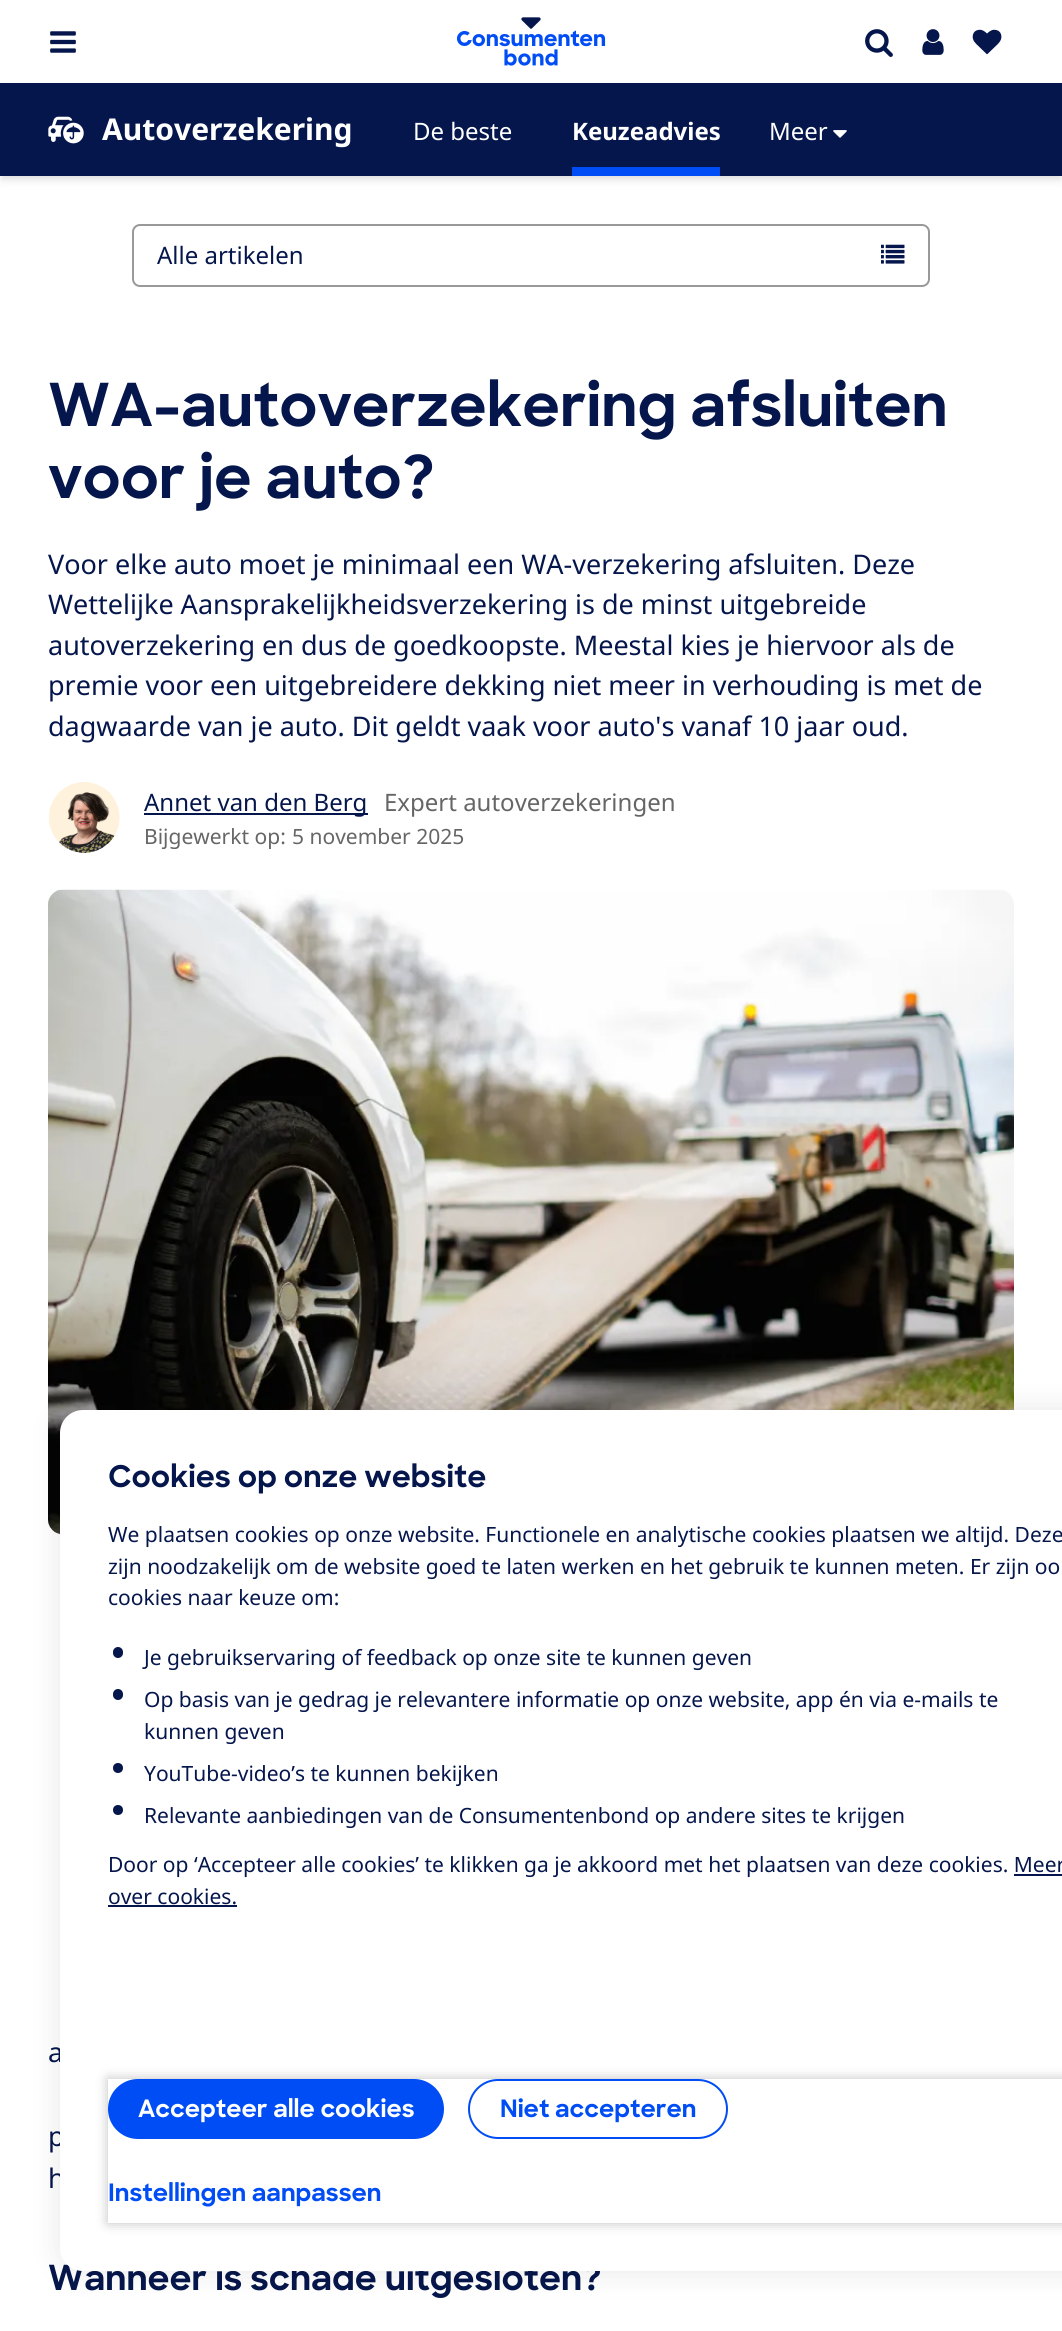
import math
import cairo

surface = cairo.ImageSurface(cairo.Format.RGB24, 1062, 2331)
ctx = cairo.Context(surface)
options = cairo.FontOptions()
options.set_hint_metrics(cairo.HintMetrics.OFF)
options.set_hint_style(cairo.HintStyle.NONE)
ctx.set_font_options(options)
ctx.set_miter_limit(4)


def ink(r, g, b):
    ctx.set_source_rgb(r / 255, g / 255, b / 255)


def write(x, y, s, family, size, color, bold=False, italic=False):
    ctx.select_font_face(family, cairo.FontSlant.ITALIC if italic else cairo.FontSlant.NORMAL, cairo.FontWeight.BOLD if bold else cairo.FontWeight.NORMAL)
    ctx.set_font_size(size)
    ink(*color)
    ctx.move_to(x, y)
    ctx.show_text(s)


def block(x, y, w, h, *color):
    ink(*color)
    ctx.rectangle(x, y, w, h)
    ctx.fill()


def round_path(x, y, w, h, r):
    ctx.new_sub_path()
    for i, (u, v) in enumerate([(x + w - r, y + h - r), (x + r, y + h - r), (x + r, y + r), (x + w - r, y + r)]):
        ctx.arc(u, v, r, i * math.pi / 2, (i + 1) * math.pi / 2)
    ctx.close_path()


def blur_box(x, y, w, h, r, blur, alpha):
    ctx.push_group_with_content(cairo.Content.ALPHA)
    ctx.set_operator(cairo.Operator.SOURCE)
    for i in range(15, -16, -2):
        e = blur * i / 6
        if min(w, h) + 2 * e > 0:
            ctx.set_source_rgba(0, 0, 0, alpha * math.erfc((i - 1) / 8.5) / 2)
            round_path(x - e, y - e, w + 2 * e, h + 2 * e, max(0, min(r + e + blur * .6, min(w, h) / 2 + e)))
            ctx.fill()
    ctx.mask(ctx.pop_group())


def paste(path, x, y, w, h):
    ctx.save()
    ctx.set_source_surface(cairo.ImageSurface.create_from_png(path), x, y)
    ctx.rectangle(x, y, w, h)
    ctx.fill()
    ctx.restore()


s1 = dict(family="Noto Sans", size=30, color=(255, 255, 255), bold=True)
s2 = dict(family="Noto Sans", size=24, color=(255, 255, 255))
s3 = dict(family="Noto Sans", size=24, color=(255, 255, 255), bold=True)
s4 = dict(family="Noto Sans", size=24, color=(5, 22, 76))
s5 = dict(family="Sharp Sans", size=59.25, color=(5, 22, 76), bold=True)
s6 = dict(family="Noto Sans", size=27, color=(5, 22, 76))
s7 = dict(family="Noto Sans", size=24, color=(102, 102, 102))
s8 = dict(family="Noto Sans", size=21, color=(102, 102, 102))
s9 = dict(family="Sharp Sans", size=34.6, color=(5, 22, 76), bold=True)
s10 = dict(family="Sharp Sans", size=30, color=(5, 22, 76), bold=True)
s11 = dict(family="Noto Sans", size=21, color=(5, 22, 76))
s12 = dict(family="Sharp Sans", size=24, color=(255, 255, 255), bold=True)
s13 = dict(family="Sharp Sans", size=24, color=(0, 77, 245), bold=True)

ink(255, 255, 255)
ctx.paint()
paste("pic1.png", 50, 31, 26, 22)
paste("pic2.png", 456, 17, 150, 49)
paste("pic3.png", 865, 29, 28, 28)
paste("pic4.png", 922, 29, 22, 26)
paste("pic5.png", 972, 29, 30, 26)
ink(0, 0, 0)
blur_box(2, 87, 1059, 90, 0, 3, 0.06)
blur_box(2, 90, 1059, 90, 0, 4.5, 0.1)
block(0, 83, 1062, 93, 5, 22, 76)
paste("pic6.png", 48, 116, 36, 28)
write(102, 140, "Autoverzekering", **s1)
write(413, 140, "De beste", **s2)
block(572, 167, 148, 9, 0, 77, 245)
write(572, 140, "Keuzeadvies", **s3)
write(769, 140, "Meer", **s2)
paste("pic7.png", 833, 130, 14, 8)
round_path(133, 225, 796, 61, 7)
ink(153, 153, 153)
ctx.stroke()
write(157, 264, "Alle artikelen", **s4)
paste("pic8.png", 881, 244, 24, 20)
write(48, 426, "WA-autoverzekering afsluiten", **s5)
write(48, 498, "voor je auto?", **s5)
write(48, 574, "Voor elke auto moet je minimaal een WA-verzekering afsluiten. Deze", **s6)
write(48, 614, "Wettelijke Aansprakelijkheidsverzekering is de minst uitgebreide", **s6)
write(48, 655, "autoverzekering en dus de goedkoopste. Meestal kies je hiervoor als de", **s6)
write(48, 695, "premie voor een uitgebreidere dekking niet meer in verhouding is met de", **s6)
write(48, 736, "dagwaarde van je auto. Dit geldt vaak voor auto's vanaf 10 jaar oud.", **s6)
paste("pic9.png", 48, 782, 72, 71)
block(144, 813, 224, 2, 5, 22, 76)
write(144, 811, "Annet van den Berg", **s4)
write(384, 811, "Expert autoverzekeringen", **s7)
write(144, 844, "Bijgewerkt op:", **s8)
write(292, 844, "5 november 2025", **s8)
paste("pic10.png", 48, 889, 966, 645)
write(48, 2062, "a", **s6)
write(48, 2146, "p", **s6)
write(48, 2188, "h", **s6)
write(48, 2290, "Wanneer is schade uitgesloten?", **s9)
ink(0, 0, 0)
blur_box(60, 1410, 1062, 861, 23, 15, 0.1)
ink(255, 255, 255)
round_path(60, 1410, 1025, 861, 23)
ctx.fill()
write(108, 1487, "Cookies op onze website", **s10)
write(108, 1542, "We plaatsen cookies op onze website. Functionele en analytische cookies plaatsen we altijd. Deze", **s11)
write(108, 1574, "zijn noodzakelijk om de website goed te laten werken en het gebruik te kunnen meten. Er zijn oo", **s11)
write(108, 1605, "cookies naar keuze om:", **s11)
round_path(113, 1647, 10, 11, 5)
ctx.fill()
write(144, 1665, "Je gebruikservaring of feedback op onze site te kunnen geven", **s11)
round_path(113, 1689, 10, 11, 5)
ctx.fill()
write(144, 1707, "Op basis van je gedrag je relevantere informatie op onze website, app én via e-mails te", **s11)
write(144, 1739, "kunnen geven", **s11)
ctx.new_path()
ctx.arc(118, 1768, 5, 0, 2 * math.pi)
ctx.fill()
write(144, 1781, "YouTube-video’s te kunnen bekijken", **s11)
ctx.new_path()
ctx.arc(118, 1810, 5, 0, 2 * math.pi)
ctx.fill()
write(144, 1823, "Relevante aanbiedingen van de Consumentenbond op andere sites te krijgen", **s11)
write(108, 1872, "Door op ‘Accepteer alle cookies’ te klikken ga je akkoord met het plaatsen van deze cookies. Meer", **s11)
write(108, 1904, "over cookies.", **s11)
block(1014, 1874, 48, 2, 5, 22, 76)
block(108, 1905, 129, 2, 5, 22, 76)
ctx.save()
ctx.set_fill_rule(cairo.FillRule.EVEN_ODD)
ctx.new_path()
ctx.move_to(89, 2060)
ctx.line_to(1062, 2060)
ctx.line_to(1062, 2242)
ctx.line_to(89, 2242)
ctx.close_path()
ctx.move_to(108, 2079)
ctx.line_to(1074, 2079)
ctx.line_to(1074, 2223)
ctx.line_to(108, 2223)
ctx.close_path()
ctx.clip()
ink(0, 0, 0)
blur_box(108, 2079, 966, 144, 0, 6, 0.25)
ctx.restore()
ink(0, 77, 245)
round_path(108, 2079, 336, 60, 30)
ctx.fill()
write(138, 2117, "Accepteer alle cookies", **s12)
round_path(469, 2080, 258, 58, 29)
ink(0, 77, 245)
ctx.stroke()
write(500, 2117, "Niet accepteren", **s13)
write(108, 2201, "Instellingen aanpassen", **s13)
surface.write_to_png("screenshot.png")
